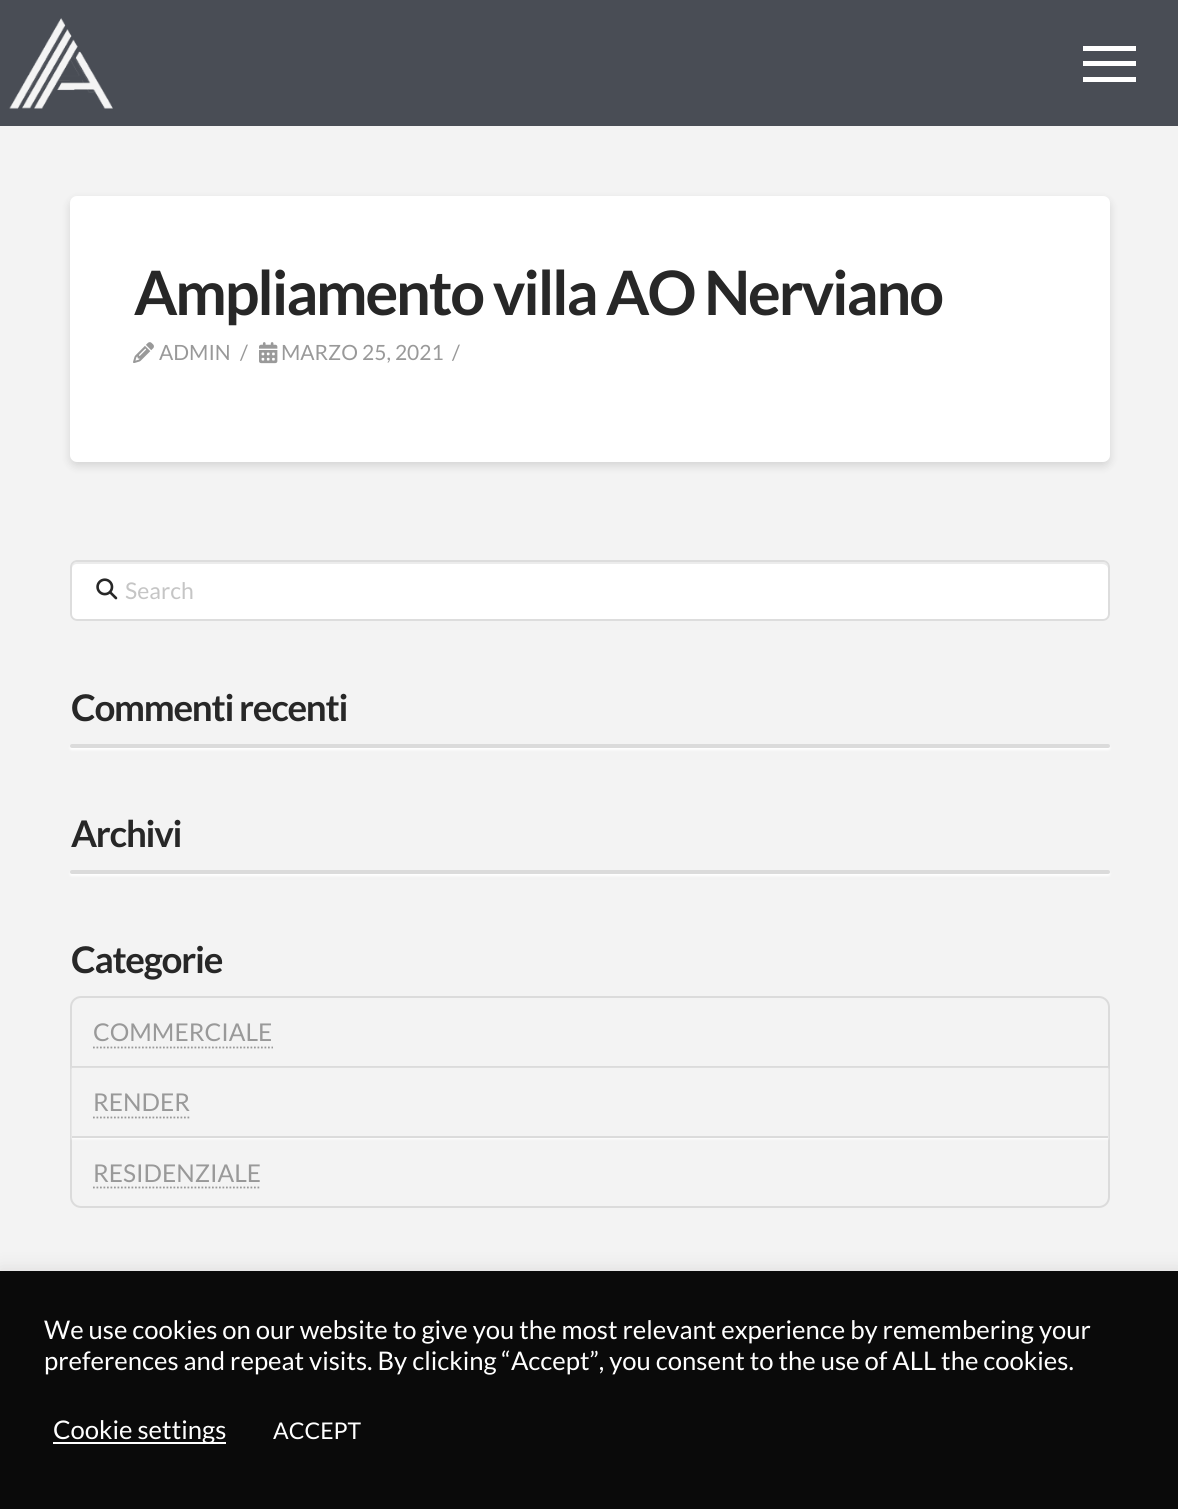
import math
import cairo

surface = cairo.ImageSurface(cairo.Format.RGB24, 1178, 1509)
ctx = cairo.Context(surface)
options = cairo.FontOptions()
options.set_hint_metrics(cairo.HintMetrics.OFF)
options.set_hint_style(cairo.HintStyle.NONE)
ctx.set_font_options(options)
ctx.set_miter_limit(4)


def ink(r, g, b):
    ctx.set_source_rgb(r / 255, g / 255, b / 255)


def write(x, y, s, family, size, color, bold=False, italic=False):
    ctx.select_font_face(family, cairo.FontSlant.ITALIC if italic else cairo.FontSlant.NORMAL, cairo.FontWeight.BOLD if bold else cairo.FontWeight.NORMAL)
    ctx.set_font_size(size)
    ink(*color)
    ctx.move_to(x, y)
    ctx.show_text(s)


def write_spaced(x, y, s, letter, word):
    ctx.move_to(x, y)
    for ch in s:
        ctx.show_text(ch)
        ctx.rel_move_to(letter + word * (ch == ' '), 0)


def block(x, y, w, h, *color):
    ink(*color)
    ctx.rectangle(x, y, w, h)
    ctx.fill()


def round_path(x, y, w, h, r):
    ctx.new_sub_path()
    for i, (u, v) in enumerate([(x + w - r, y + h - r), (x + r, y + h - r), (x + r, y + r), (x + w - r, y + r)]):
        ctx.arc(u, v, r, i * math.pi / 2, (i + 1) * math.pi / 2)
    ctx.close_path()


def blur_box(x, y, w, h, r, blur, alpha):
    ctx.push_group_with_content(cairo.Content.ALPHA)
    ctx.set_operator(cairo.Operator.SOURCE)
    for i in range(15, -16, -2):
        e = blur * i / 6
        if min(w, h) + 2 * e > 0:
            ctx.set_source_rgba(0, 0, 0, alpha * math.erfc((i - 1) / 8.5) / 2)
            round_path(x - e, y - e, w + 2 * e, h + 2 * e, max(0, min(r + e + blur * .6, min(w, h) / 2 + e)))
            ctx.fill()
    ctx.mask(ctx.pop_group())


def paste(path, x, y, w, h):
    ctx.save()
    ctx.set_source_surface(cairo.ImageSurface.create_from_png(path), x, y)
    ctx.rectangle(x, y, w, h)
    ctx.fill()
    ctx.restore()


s1 = dict(family="Lato", size=21, color=(153, 153, 153))
s2 = dict(family="Lato", size=23, color=(197, 197, 197))
s3 = dict(family="Lato", size=24.5, color=(153, 153, 153))
s4 = dict(family="Lato", size=25.65, color=(255, 255, 255))
s5 = dict(family="Lato", size=23, color=(255, 255, 255))

ink(243, 243, 243)
ctx.paint()
block(0, 0, 1178, 126, 73, 77, 85)
paste("pic1.png", 9, 18, 104, 91)
block(1083, 46, 53, 5, 255, 255, 255)
block(1083, 61, 53, 5, 255, 255, 255)
block(1083, 77, 53, 5, 255, 255, 255)
ink(0, 0, 0)
blur_box(70, 200, 1040, 266, 7, 4.5, 0.13)
ink(255, 255, 255)
round_path(70, 196, 1040, 266, 7)
ctx.fill()
ctx.select_font_face("Lato", cairo.FontSlant.NORMAL, cairo.FontWeight.BOLD)
ctx.set_font_size(61.25)
ink(39, 39, 39)
write_spaced(134, 315, "Ampliamento villa AO Nerviano", -2.15, 0)
paste("pic2.png", 133, 342, 21, 21)
write(159, 360, "ADMIN", **s1)
write(240, 360, "/", **s1)
paste("pic3.png", 259, 342, 19, 22)
write(281, 360, "MARZO 25, 2021", **s1)
write(452, 360, "/", **s1)
ink(255, 255, 255)
round_path(70, 560, 1040, 61, 7)
ctx.fill()
ink(236, 236, 236)
ctx.new_path()
ctx.move_to(77, 564)
ctx.line_to(1102, 564)
ctx.curve_to(1105, 564, 1108, 566, 1108, 569)
ctx.line_to(1108, 567)
ctx.curve_to(1108, 564, 1106, 562, 1103, 562)
ctx.line_to(77, 562)
ctx.curve_to(74, 562, 72, 564, 72, 567)
ctx.line_to(72, 569)
ctx.curve_to(72, 566, 74, 564, 77, 564)
ctx.close_path()
ctx.fill()
round_path(71, 561, 1038, 59, 6)
ink(221, 221, 221)
ctx.stroke()
paste("pic4.png", 96, 578, 22, 22)
write(125, 599, "Search", **s2)
ctx.select_font_face("Lato", cairo.FontSlant.NORMAL, cairo.FontWeight.BOLD)
ctx.set_font_size(36.75)
ink(39, 39, 39)
write_spaced(71, 721, "Commenti recenti", -1.25, 0)
ctx.save()
ctx.set_fill_rule(cairo.FillRule.EVEN_ODD)
ctx.new_path()
ctx.move_to(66, 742)
ctx.line_to(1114, 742)
ctx.line_to(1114, 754)
ctx.line_to(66, 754)
ctx.close_path()
ctx.move_to(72, 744)
ctx.line_to(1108, 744)
ctx.curve_to(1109, 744, 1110, 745, 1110, 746)
ctx.curve_to(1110, 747, 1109, 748, 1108, 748)
ctx.line_to(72, 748)
ctx.curve_to(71, 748, 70, 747, 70, 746)
ctx.curve_to(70, 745, 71, 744, 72, 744)
ctx.close_path()
ctx.clip()
ink(255, 255, 255)
blur_box(70, 746, 1040, 4, 2, 1, 0.95)
ctx.restore()
ctx.set_source_rgba(0, 0, 0, 0.1)
round_path(70, 744, 1040, 4, 2)
ctx.fill()
ink(39, 39, 39)
write_spaced(71, 847, "Archivi", -1.25, 0)
ctx.save()
ctx.set_fill_rule(cairo.FillRule.EVEN_ODD)
ctx.new_path()
ctx.move_to(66, 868)
ctx.line_to(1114, 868)
ctx.line_to(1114, 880)
ctx.line_to(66, 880)
ctx.close_path()
ctx.move_to(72, 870)
ctx.line_to(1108, 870)
ctx.curve_to(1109, 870, 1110, 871, 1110, 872)
ctx.curve_to(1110, 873, 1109, 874, 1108, 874)
ctx.line_to(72, 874)
ctx.curve_to(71, 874, 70, 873, 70, 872)
ctx.curve_to(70, 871, 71, 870, 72, 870)
ctx.close_path()
ctx.clip()
ink(255, 255, 255)
blur_box(70, 872, 1040, 4, 2, 1, 0.95)
ctx.restore()
ctx.set_source_rgba(0, 0, 0, 0.1)
round_path(70, 870, 1040, 4, 2)
ctx.fill()
ink(39, 39, 39)
write_spaced(71, 973, "Categorie", -1.25, 0)
round_path(71, 997, 1038, 210, 10)
ctx.set_source_rgba(0, 0, 0, 0.1)
ctx.stroke()
ctx.rectangle(72, 1066, 1036, 2)
ctx.fill()
write(93, 1041, "COMMERCIALE", **s3)
ctx.new_path()
ctx.move_to(93, 1047.5)
ctx.line_to(273, 1047.5)
ctx.set_line_width(1.8)
ctx.set_dash([1.75, 1.75])
ctx.stroke()
ctx.save()
ctx.set_fill_rule(cairo.FillRule.EVEN_ODD)
ctx.new_path()
ctx.move_to(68, 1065)
ctx.line_to(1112, 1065)
ctx.line_to(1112, 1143)
ctx.line_to(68, 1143)
ctx.close_path()
ctx.move_to(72, 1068)
ctx.line_to(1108, 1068)
ctx.line_to(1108, 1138)
ctx.line_to(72, 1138)
ctx.close_path()
ctx.clip()
ink(255, 255, 255)
blur_box(72, 1069, 1036, 70, 0, 1, 0.95)
ctx.restore()
ctx.set_source_rgba(0, 0, 0, 0.1)
ctx.rectangle(72, 1136, 1036, 2)
ctx.fill()
write(93, 1111, "RENDER", **s3)
ctx.new_path()
ctx.move_to(93, 1117.5)
ctx.line_to(191, 1117.5)
ctx.stroke()
write(93, 1182, "RESIDENZIALE", **s3)
ctx.new_path()
ctx.move_to(93, 1187.5)
ctx.line_to(261, 1187.5)
ctx.stroke()
ink(172, 171, 171)
blur_box(0, 1269, 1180, 240, 0, 9, 0.3)
block(0, 1271, 1178, 238, 10, 10, 10)
write(44, 1339, "We use cookies on our website to give you the most relevant experience by remembering your", **s4)
write(44, 1370, "preferences and repeat visits. By clicking “Accept”, you consent to the use of ALL the cookies.", **s4)
block(53, 1442, 173, 2, 255, 255, 255)
write(53, 1439, "Cookie settings", **s4)
write(273, 1439, "ACCEPT", **s5)
surface.write_to_png("screenshot.png")
